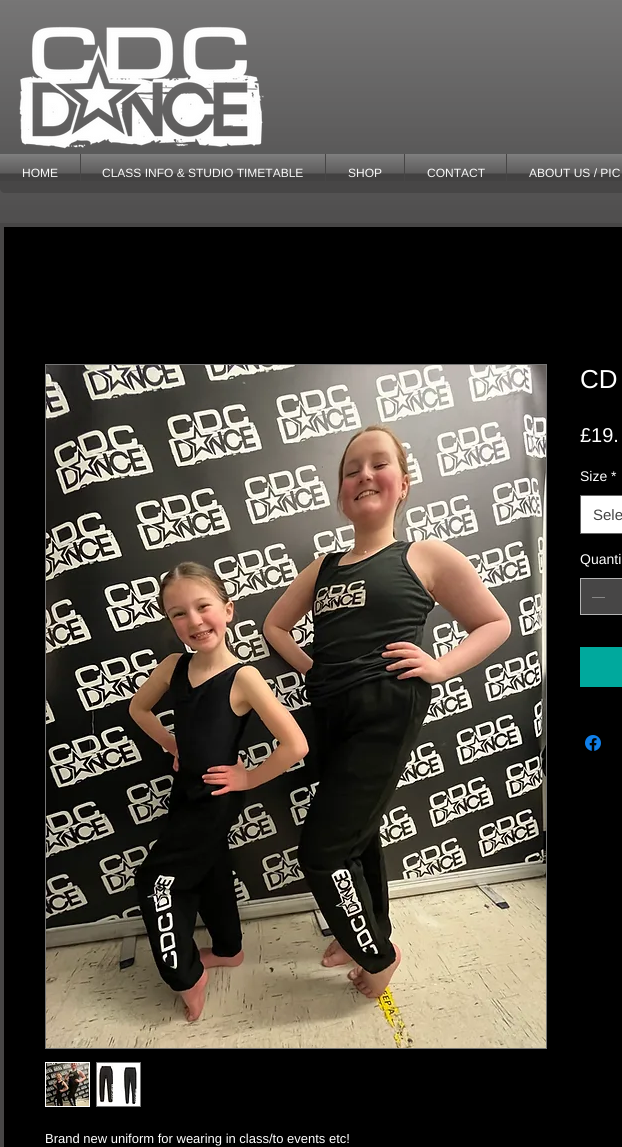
import math
import cairo

surface = cairo.ImageSurface(cairo.Format.RGB24, 622, 1147)
ctx = cairo.Context(surface)
options = cairo.FontOptions()
options.set_hint_metrics(cairo.HintMetrics.OFF)
options.set_hint_style(cairo.HintStyle.NONE)
ctx.set_font_options(options)
ctx.set_miter_limit(4)


def ink(r, g, b):
    ctx.set_source_rgb(r / 255, g / 255, b / 255)


def write(x, y, s, family, size, color, bold=False, italic=False):
    ctx.select_font_face(family, cairo.FontSlant.ITALIC if italic else cairo.FontSlant.NORMAL, cairo.FontWeight.BOLD if bold else cairo.FontWeight.NORMAL)
    ctx.set_font_size(size)
    ink(*color)
    ctx.move_to(x, y)
    ctx.show_text(s)


def block(x, y, w, h, *color):
    ink(*color)
    ctx.rectangle(x, y, w, h)
    ctx.fill()


def paste(path, x, y, w, h):
    ctx.save()
    ctx.set_source_surface(cairo.ImageSurface.create_from_png(path), x, y)
    ctx.rectangle(x, y, w, h)
    ctx.fill()
    ctx.restore()


s1 = dict(family="Liberation Sans", size=12, color=(255, 255, 255))
s2 = dict(family="Liberation Sans", size=26, color=(255, 255, 255))
s3 = dict(family="Liberation Sans", size=20, color=(255, 255, 255))
s4 = dict(family="Liberation Sans", size=14, color=(255, 255, 255))
s5 = dict(family="Liberation Sans", size=15, color=(68, 68, 68))
s6 = dict(family="Liberation Sans", size=13, color=(255, 255, 255))

ink(71, 70, 70)
ctx.paint()
paste("pic1.png", 0, 0, 622, 223)
paste("pic2.png", 19, 26, 245, 123)
ink(71, 70, 70)
ctx.new_path()
ctx.move_to(0, 154)
ctx.line_to(80, 154)
ctx.line_to(80, 193)
ctx.line_to(5, 193)
ctx.curve_to(2, 193, 0, 191, 0, 188)
ctx.close_path()
ctx.fill()
write(22, 177, "HOME", **s1)
paste("pic3.png", 0, 154, 80, 27)
block(80, 154, 542, 39, 71, 70, 70)
write(102, 177, "CLASS INFO & STUDIO TIMETABLE", **s1)
paste("pic4.png", 81, 154, 244, 27)
write(348, 177, "SHOP", **s1)
paste("pic5.png", 326, 154, 78, 27)
write(427, 177, "CONTACT", **s1)
paste("pic6.png", 405, 154, 101, 27)
write(529, 177, "ABOUT US / PIC", **s1)
paste("pic7.png", 507, 154, 115, 27)
block(4, 227, 618, 920, 0, 0, 0)
write(580, 388, "CD", **s2)
write(580, 442, "£19.", **s3)
write(580, 481, "Size *", **s4)
ctx.rectangle(580.5, 495.5, 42, 38)
ctx.fill_preserve()
ink(102, 102, 102)
ctx.set_line_width(1)
ctx.stroke()
write(593, 520, "Sele", **s5)
write(580, 564, "Quanti", **s4)
ink(71, 70, 70)
ctx.rectangle(580.5, 578.5, 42, 36)
ctx.fill_preserve()
ink(181, 181, 181)
ctx.stroke()
block(592, 597, 13, 1, 135, 135, 135)
block(580, 647, 42, 40, 0, 169, 157)
paste("pic8.png", 585, 735, 16, 16)
ctx.rectangle(45.5, 364.5, 501, 684)
ink(118, 118, 118)
ctx.stroke()
paste("pic9.png", 46, 365, 500, 683)
ctx.rectangle(45.5, 1062.5, 44, 44)
ink(255, 255, 255)
ctx.stroke()
paste("pic10.png", 46, 1063, 43, 43)
block(96, 1062, 45, 45, 118, 118, 118)
paste("pic11.png", 97, 1063, 43, 43)
write(45, 1143, "Brand new uniform for wearing in class/to events etc!", **s6)
surface.write_to_png("screenshot.png")
